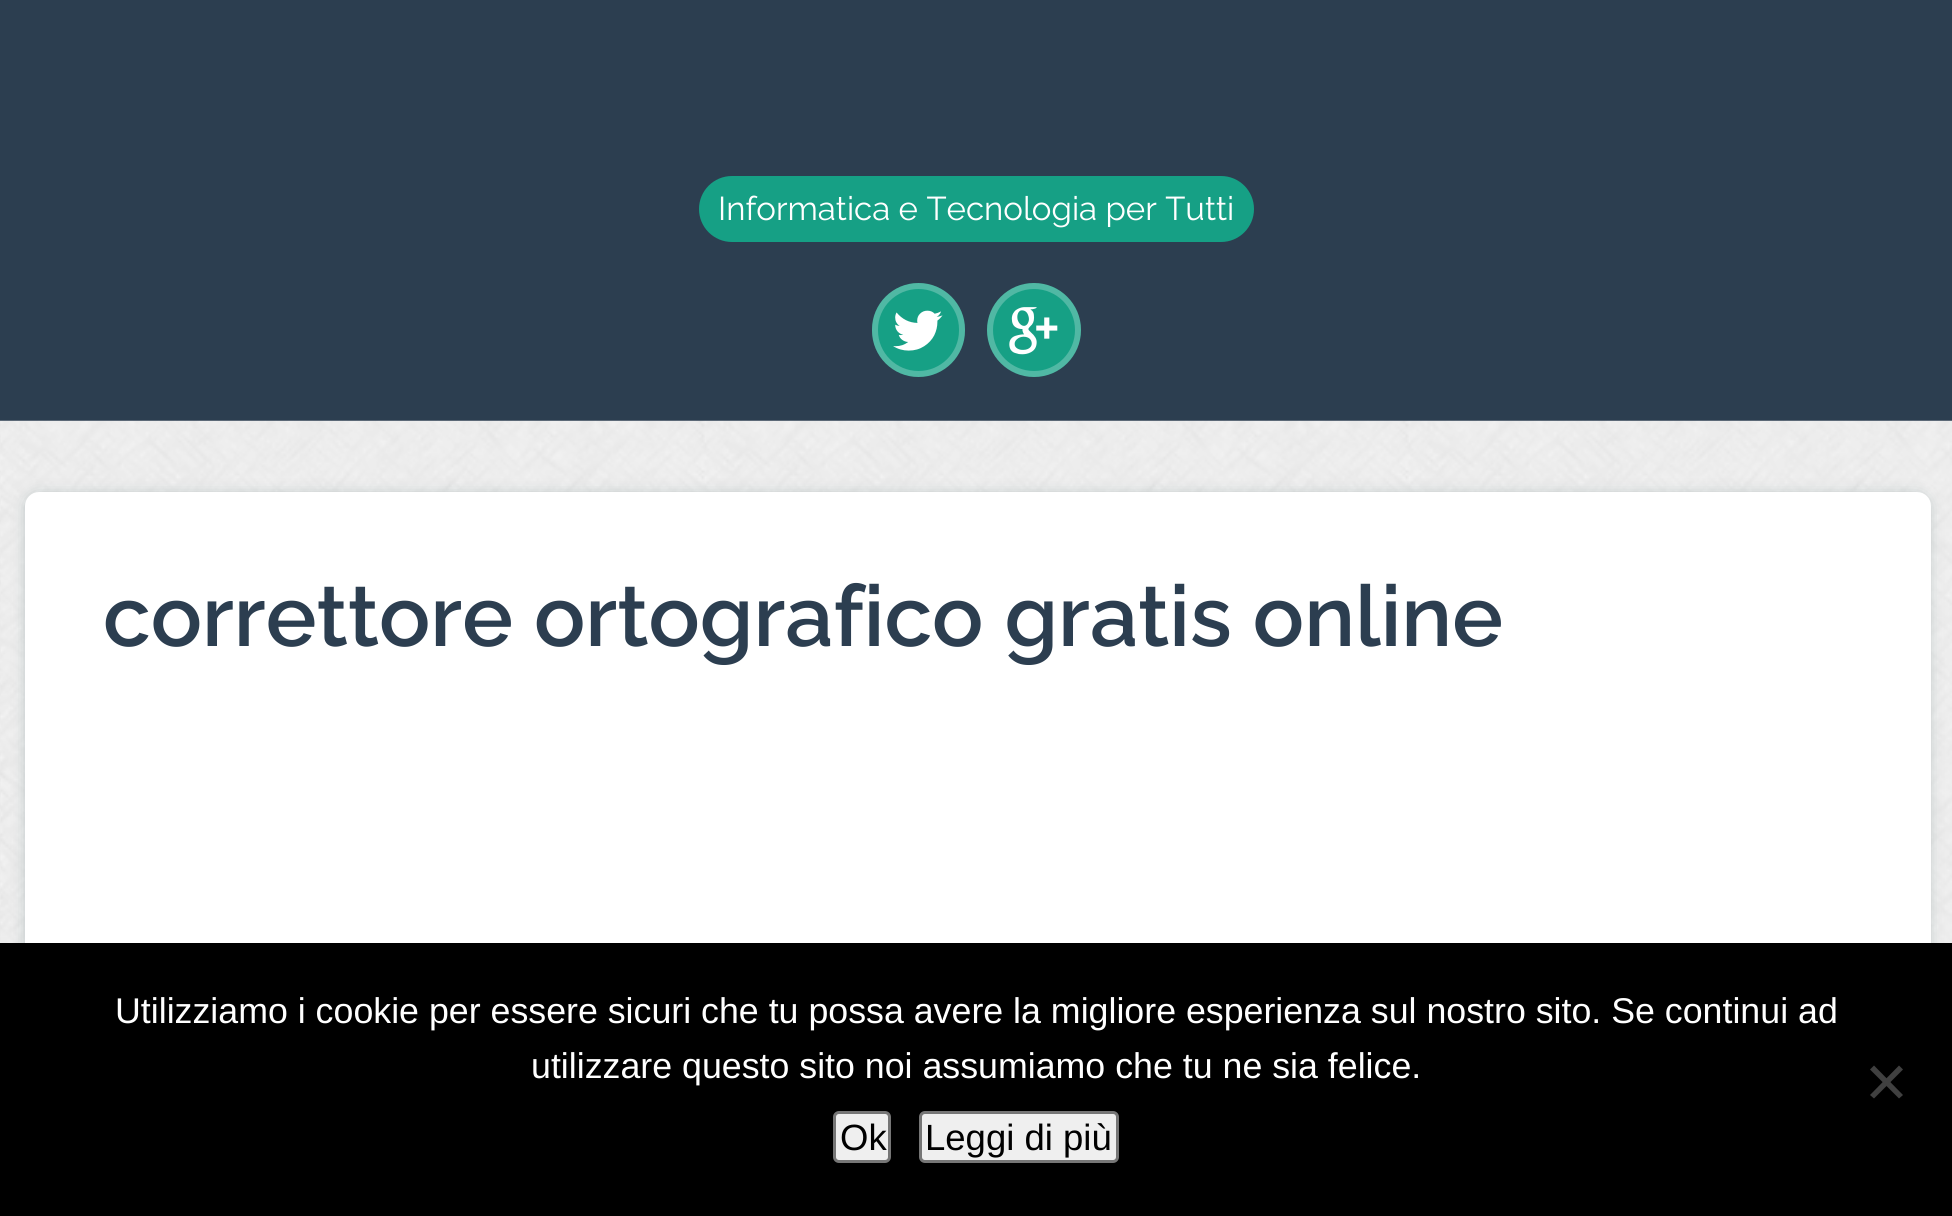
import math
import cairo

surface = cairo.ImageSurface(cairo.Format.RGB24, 1952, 1216)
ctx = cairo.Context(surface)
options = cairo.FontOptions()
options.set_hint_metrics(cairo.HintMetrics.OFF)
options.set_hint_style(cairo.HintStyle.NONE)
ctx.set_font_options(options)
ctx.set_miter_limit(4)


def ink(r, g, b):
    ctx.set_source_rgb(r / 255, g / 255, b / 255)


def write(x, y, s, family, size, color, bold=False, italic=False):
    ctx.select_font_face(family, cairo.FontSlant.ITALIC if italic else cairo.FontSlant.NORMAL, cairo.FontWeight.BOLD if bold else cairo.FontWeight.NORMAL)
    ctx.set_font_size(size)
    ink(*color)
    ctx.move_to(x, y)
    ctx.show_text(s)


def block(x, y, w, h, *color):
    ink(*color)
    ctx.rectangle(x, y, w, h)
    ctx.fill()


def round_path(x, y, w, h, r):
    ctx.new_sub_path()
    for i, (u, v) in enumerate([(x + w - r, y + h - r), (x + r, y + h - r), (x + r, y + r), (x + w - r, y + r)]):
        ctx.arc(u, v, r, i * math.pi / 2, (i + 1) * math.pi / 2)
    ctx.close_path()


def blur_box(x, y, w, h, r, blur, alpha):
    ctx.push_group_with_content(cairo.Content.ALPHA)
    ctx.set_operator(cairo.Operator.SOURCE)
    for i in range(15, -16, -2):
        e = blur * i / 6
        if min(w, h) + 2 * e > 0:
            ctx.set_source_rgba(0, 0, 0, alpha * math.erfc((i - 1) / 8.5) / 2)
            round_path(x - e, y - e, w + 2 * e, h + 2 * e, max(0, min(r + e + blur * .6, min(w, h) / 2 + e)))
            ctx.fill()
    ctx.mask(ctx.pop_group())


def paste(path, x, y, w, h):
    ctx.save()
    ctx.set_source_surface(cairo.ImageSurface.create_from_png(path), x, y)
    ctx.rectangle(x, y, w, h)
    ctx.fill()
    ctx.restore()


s1 = dict(family="Raleway", size=33, color=(255, 255, 255))
s2 = dict(family="Raleway SemiBold", size=85.25, color=(44, 62, 80))
s3 = dict(family="Liberation Sans", size=35.75, color=(255, 255, 255))
s4 = dict(family="Liberation Sans", size=36.5, color=(0, 0, 0))

ink(44, 62, 80)
ctx.paint()
ink(22, 160, 133)
round_path(699, 176, 555, 66, 33)
ctx.fill()
write(718, 220, "Informatica e Tecnologia per Tutti", **s1)
ink(22, 160, 133)
round_path(872, 283, 93, 94, 46.5)
ctx.fill()
round_path(875, 286, 87, 88, 43.5)
ctx.set_source_rgba(1, 1, 1, 0.25)
ctx.set_line_width(6)
ctx.stroke()
ink(22, 160, 133)
ctx.arc(1034, 330, 47, 0, 2 * math.pi)
ctx.fill()
ctx.arc(1034, 330, 44, 0, 2 * math.pi)
ctx.set_source_rgba(1, 1, 1, 0.25)
ctx.stroke()
paste("pic1.png", 893, 310, 50, 41)
paste("pic2.png", 1009, 307, 49, 48)
paste("pic3.png", 0, 420, 1952, 523)
ink(149, 165, 166)
blur_box(30, 498, 1895, 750, 8, 8, 1)
ink(255, 255, 255)
round_path(25, 492, 1906, 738, 14)
ctx.fill()
write(103, 646, "correttore ortografico gratis online", **s2)
block(0, 943, 1952, 273, 0, 0, 0)
write(115, 1023, "Utilizziamo i cookie per essere sicuri che tu possa avere la migliore esperienza sul nostro sito. Se continui ad", **s3)
write(531, 1078, "utilizzare questo sito noi assumiamo che tu ne sia felice.", **s3)
ink(64, 64, 64)
ctx.new_path()
ctx.move_to(1899, 1065.5)
ctx.line_to(1903, 1069.5)
ctx.line_to(1874, 1098.5)
ctx.line_to(1870, 1095)
ctx.close_path()
ctx.fill()
ctx.new_path()
ctx.move_to(1870, 1069.5)
ctx.line_to(1874, 1065.5)
ctx.line_to(1903, 1095)
ctx.line_to(1899, 1098.5)
ctx.close_path()
ctx.fill()
ink(239, 239, 239)
round_path(834.5, 1112.5, 55, 49, 4.5)
ctx.fill_preserve()
ink(118, 118, 118)
ctx.set_line_width(3)
ctx.stroke()
write(840, 1150, "Ok", **s4)
ink(239, 239, 239)
round_path(920.5, 1112.5, 197, 49, 4.5)
ctx.fill_preserve()
ink(118, 118, 118)
ctx.stroke()
write(925, 1150, "Leggi di più", **s4)
surface.write_to_png("screenshot.png")
